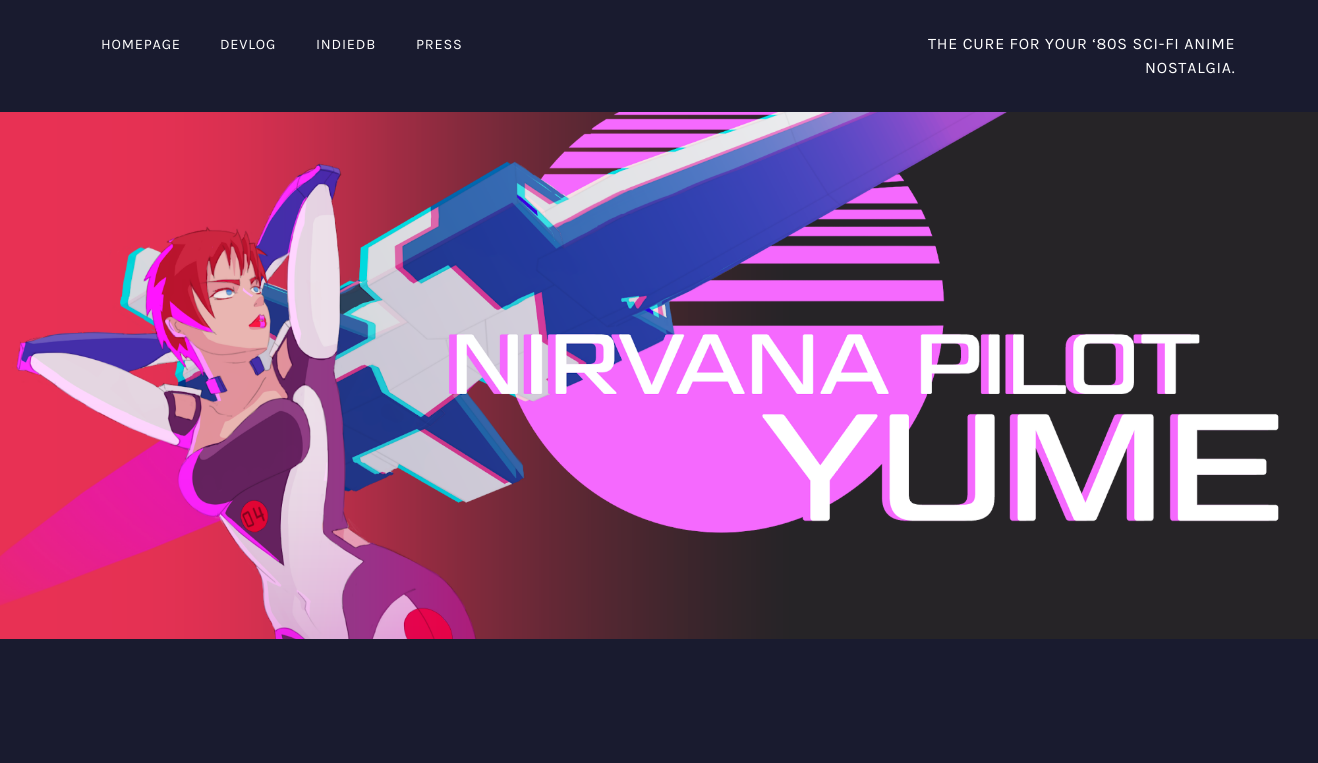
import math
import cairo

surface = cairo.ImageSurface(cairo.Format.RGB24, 1318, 763)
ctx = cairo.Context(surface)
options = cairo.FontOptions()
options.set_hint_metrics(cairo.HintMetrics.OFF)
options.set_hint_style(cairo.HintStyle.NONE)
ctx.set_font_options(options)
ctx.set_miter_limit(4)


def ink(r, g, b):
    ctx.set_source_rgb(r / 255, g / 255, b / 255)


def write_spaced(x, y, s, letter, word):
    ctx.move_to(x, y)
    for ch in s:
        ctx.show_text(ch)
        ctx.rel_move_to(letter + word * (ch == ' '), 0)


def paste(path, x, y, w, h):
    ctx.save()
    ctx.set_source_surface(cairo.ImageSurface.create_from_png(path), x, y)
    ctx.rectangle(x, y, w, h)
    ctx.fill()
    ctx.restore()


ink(25, 27, 47)
ctx.paint()
ctx.select_font_face("Karla")
ctx.set_font_size(14.5)
ink(255, 255, 255)
write_spaced(101, 49, "HOMEPAGE", 0.8, 0)
write_spaced(220, 49, "DEVLOG", 0.8, 0)
write_spaced(316, 49, "INDIEDB", 0.8, 0)
write_spaced(416, 49, "PRESS", 0.8, 0)
ctx.set_font_size(16)
write_spaced(928, 49, "THE CURE FOR YOUR ‘80S SCI-FI ANIME", 0.8, 0)
write_spaced(1145, 73, "NOSTALGIA.", 0.8, 0)
paste("pic1.png", 0, 112, 1318, 527)
surface.write_to_png("screenshot.png")
